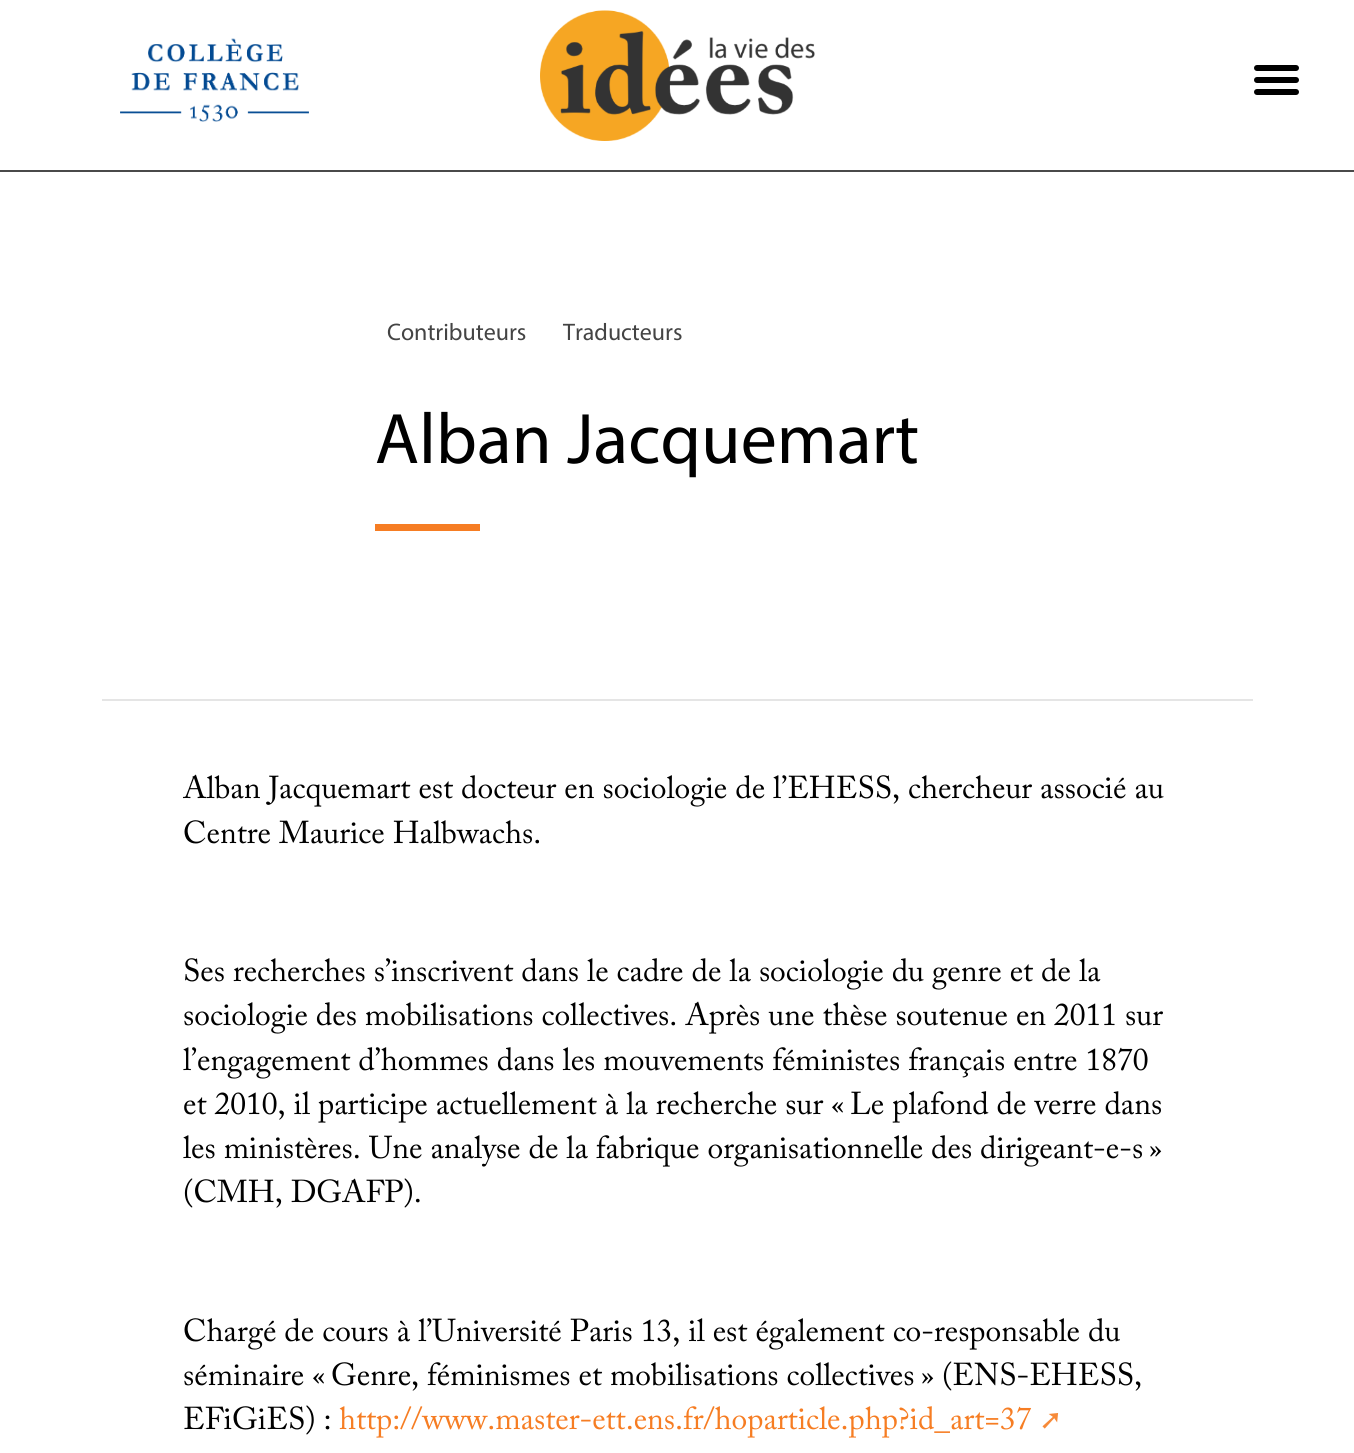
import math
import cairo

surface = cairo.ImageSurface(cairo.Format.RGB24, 1354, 1453)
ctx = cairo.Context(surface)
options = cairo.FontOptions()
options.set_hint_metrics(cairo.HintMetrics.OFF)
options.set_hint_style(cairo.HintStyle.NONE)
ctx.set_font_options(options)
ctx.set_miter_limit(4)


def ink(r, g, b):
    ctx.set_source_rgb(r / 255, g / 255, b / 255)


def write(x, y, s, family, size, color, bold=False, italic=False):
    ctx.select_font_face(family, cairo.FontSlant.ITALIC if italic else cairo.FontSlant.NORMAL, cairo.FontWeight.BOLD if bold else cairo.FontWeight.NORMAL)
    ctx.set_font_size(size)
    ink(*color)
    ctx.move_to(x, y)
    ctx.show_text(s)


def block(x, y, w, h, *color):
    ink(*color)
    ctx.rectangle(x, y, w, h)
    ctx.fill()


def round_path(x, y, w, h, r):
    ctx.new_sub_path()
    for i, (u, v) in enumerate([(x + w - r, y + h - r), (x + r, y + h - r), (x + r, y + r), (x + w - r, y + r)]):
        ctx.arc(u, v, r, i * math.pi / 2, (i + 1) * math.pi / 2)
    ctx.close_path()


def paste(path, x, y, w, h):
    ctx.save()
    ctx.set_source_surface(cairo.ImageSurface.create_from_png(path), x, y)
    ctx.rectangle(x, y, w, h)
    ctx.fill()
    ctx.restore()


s1 = dict(family="Myriad", size=24, color=(68, 68, 68))
s2 = dict(family="Myriad", size=72, color=(0, 0, 0))
s3 = dict(family="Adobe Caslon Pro", size=31.5, color=(0, 0, 0))
s4 = dict(family="Adobe Caslon Pro", size=31.5, color=(246, 125, 35))
s5 = dict(family="DejaVu Sans", size=28, color=(247, 138, 57))

ink(255, 255, 255)
ctx.paint()
block(0, 170, 1354, 2, 74, 74, 74)
paste("pic1.png", 120, 38, 189, 84)
paste("pic2.png", 540, 10, 275, 131)
ink(0, 0, 0)
round_path(1254, 77, 45, 6, 3)
ctx.fill()
round_path(1254, 65, 45, 6, 3)
ctx.fill()
round_path(1254, 89, 45, 6, 3)
ctx.fill()
write(387, 340, "Contributeurs", **s1)
write(563, 340, "Traducteurs", **s1)
write(375, 463, "Alban Jacquemart", **s2)
block(375, 524, 105, 7, 246, 125, 35)
block(102, 699, 1151, 2, 229, 229, 229)
write(183, 798, "Alban Jacquemart est docteur en sociologie de l’EHESS", **s3)
write(892, 798, ", chercheur associé au", **s3)
write(183, 843, "Centre Maurice Halbwachs.", **s3)
write(183, 981, "Ses recherches s’inscrivent dans le cadre de la sociologie du genre et de la", **s3)
write(183, 1025, "sociologie des mobilisations collectives. Après une thèse soutenue en 2011 sur", **s3)
write(183, 1070, "l’engagement d’hommes dans les mouvements féministes français entre 1870", **s3)
write(183, 1114, "et 2010, il participe actuellement à la recherche sur «", **s3)
write(850, 1114, "Le plafond de verre dans", **s3)
write(183, 1158, "les ministères. Une analyse de la fabrique organisationnelle des dirigeant-e-s", **s3)
write(1149, 1158, "»", **s3)
write(183, 1202, "(CMH, DGAFP).", **s3)
write(183, 1341, "Chargé de cours à l’Université Paris 13, il est également co-responsable du", **s3)
write(183, 1385, "séminaire «", **s3)
write(331, 1385, "Genre, féminismes et mobilisations collectives", **s3)
write(921, 1385, "» (ENS-EHESS,", **s3)
write(183, 1429, "EFiGiES) :", **s3)
write(339, 1429, "http://www.master-ett.ens.fr/hoparticle.php?id_art=37", **s4)
write(1039, 1429, "➚", **s5)
surface.write_to_png("screenshot.png")
